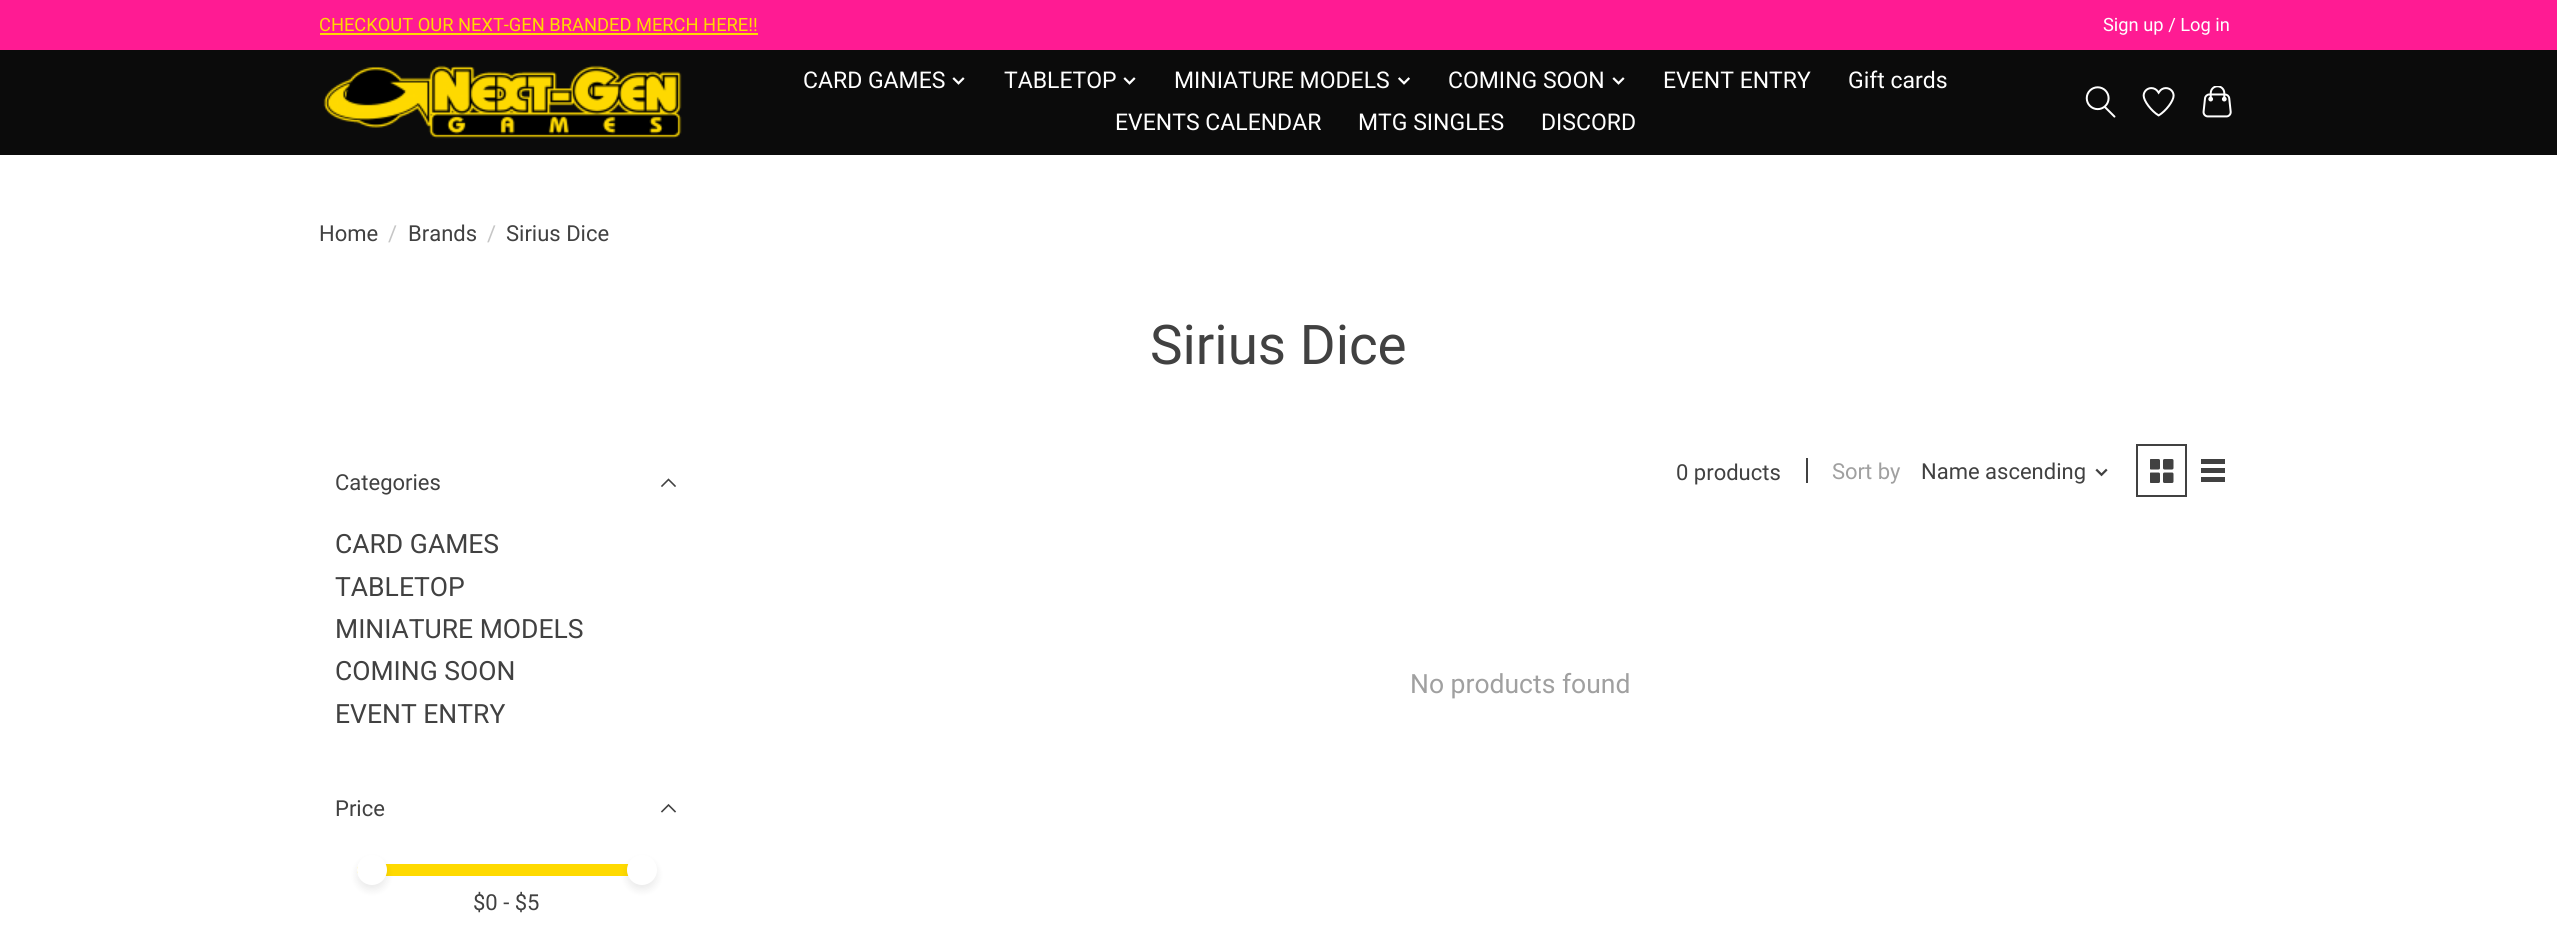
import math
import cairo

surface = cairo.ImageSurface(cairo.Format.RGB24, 2557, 938)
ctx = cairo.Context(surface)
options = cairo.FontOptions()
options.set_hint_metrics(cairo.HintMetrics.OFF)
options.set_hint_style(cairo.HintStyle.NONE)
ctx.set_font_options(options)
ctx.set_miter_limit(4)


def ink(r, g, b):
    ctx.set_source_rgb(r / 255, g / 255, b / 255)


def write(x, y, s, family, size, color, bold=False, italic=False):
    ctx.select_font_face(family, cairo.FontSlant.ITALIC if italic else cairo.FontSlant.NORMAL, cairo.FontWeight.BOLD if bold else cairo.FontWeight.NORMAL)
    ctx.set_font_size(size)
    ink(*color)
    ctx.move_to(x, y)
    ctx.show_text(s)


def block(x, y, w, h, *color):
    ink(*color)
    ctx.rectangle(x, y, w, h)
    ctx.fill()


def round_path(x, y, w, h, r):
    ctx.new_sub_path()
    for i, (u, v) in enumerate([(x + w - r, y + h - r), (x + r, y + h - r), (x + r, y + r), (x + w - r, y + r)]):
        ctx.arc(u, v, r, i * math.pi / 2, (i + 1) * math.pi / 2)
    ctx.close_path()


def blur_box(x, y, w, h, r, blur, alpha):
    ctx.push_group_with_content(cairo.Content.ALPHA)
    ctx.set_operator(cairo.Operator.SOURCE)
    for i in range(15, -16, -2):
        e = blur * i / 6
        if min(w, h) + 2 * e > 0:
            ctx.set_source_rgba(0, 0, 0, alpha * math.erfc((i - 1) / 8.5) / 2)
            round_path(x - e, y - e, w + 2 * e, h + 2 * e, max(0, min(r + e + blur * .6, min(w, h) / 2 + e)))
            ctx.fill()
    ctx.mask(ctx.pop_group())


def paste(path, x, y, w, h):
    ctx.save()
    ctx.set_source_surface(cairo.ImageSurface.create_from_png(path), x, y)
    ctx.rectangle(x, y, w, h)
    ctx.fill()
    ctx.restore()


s1 = dict(family="Roboto", size=18.3, color=(255, 218, 0))
s2 = dict(family="Roboto", size=18.3, color=(255, 255, 255))
s3 = dict(family="Roboto", size=23, color=(255, 255, 255))
s4 = dict(family="Roboto", size=22, color=(65, 65, 65))
s5 = dict(family="Roboto", size=22, color=(198, 198, 198))
s6 = dict(family="Roboto", size=54.75, color=(65, 65, 65))
s7 = dict(family="Roboto", size=26.5, color=(65, 65, 65))
s8 = dict(family="Roboto", size=22, color=(160, 160, 160))
s9 = dict(family="Roboto", size=26.5, color=(160, 160, 160))

ink(255, 255, 255)
ctx.paint()
block(0, 50, 2557, 105, 11, 11, 11)
block(0, 0, 2557, 50, 255, 27, 147)
write(319, 31, "CHECKOUT OUR NEXT-GEN BRANDED MERCH HERE!!", **s1)
block(320, 33, 438, 2, 255, 218, 0)
write(2103, 31, "Sign up / Log in", **s2)
paste("pic1.png", 323, 65, 359, 74)
write(803, 88, "CARD GAMES", **s3)
paste("pic2.png", 952, 77, 13, 8)
write(1004, 88, "TABLETOP", **s3)
paste("pic2.png", 1123, 77, 13, 8)
write(1174, 88, "MINIATURE MODELS", **s3)
paste("pic3.png", 1398, 77, 12, 8)
write(1448, 88, "COMING SOON", **s3)
paste("pic2.png", 1612, 77, 13, 8)
write(1663, 88, "EVENT ENTRY", **s3)
write(1848, 88, "Gift cards", **s3)
write(1115, 130, "EVENTS CALENDAR", **s3)
write(1358, 130, "MTG SINGLES", **s3)
write(1541, 130, "DISCORD", **s3)
paste("pic4.png", 2085, 86, 31, 32)
paste("pic5.png", 2142, 87, 33, 30)
paste("pic6.png", 2202, 86, 30, 32)
write(319, 241, "Home", **s4)
write(388, 241, "/", **s5)
write(408, 241, "Brands", **s4)
write(487, 241, "/", **s5)
write(506, 241, "Sirius Dice", **s4)
write(1150, 364, "Sirius Dice", **s6)
write(335, 490, "Categories", **s4)
ctx.new_path()
ctx.move_to(662, 486)
ctx.line_to(668.5, 479.5)
ctx.move_to(675, 486)
ctx.line_to(668.5, 479.5)
ctx.set_line_width(1.6)
ctx.set_line_cap(cairo.LineCap.SQUARE)
ctx.stroke()
write(335, 553, "CARD GAMES", **s7)
write(335, 596, "TABLETOP", **s7)
write(335, 638, "MINIATURE MODELS", **s7)
write(335, 680, "COMING SOON", **s7)
write(335, 723, "EVENT ENTRY", **s7)
write(335, 816, "Price", **s4)
ctx.new_path()
ctx.move_to(662, 811.5)
ctx.line_to(668.5, 805)
ctx.move_to(675, 811.5)
ctx.line_to(668.5, 805)
ctx.stroke()
ink(255, 218, 0)
ctx.new_path()
ctx.move_to(363, 864)
ctx.line_to(642, 864)
ctx.line_to(642, 876)
ctx.line_to(363, 876)
ctx.curve_to(359.5, 876, 357, 873.5, 357, 870)
ctx.curve_to(357, 866.5, 359.5, 864, 363, 864)
ctx.close_path()
ctx.fill()
ink(0, 0, 0)
blur_box(357, 860, 30, 30, 15, 4, 0.08)
ink(255, 255, 255)
ctx.arc(372, 870, 15, 0, 2 * math.pi)
ctx.fill()
write(473, 910, "$0 - $5", **s4)
ink(0, 0, 0)
blur_box(627, 860, 30, 30, 15, 4, 0.08)
ink(255, 255, 255)
ctx.arc(642, 870, 15, 0, 2 * math.pi)
ctx.fill()
write(1676, 480, "0 products", **s4)
block(1806, 458, 2, 25, 65, 65, 65)
write(1832, 479, "Sort by", **s8)
write(1921, 479, "Name ascending", **s4)
paste("pic7.png", 2095, 468, 13, 9)
ctx.rectangle(2137, 445, 49, 51)
ctx.set_line_width(2)
ctx.set_line_cap(cairo.LineCap.BUTT)
ctx.stroke()
paste("pic8.png", 2150, 459, 24, 24)
block(2201, 459, 24, 5, 65, 65, 65)
block(2201, 468, 24, 5, 65, 65, 65)
block(2201, 477, 24, 5, 65, 65, 65)
write(1410, 693, "No products found", **s9)
surface.write_to_png("screenshot.png")
